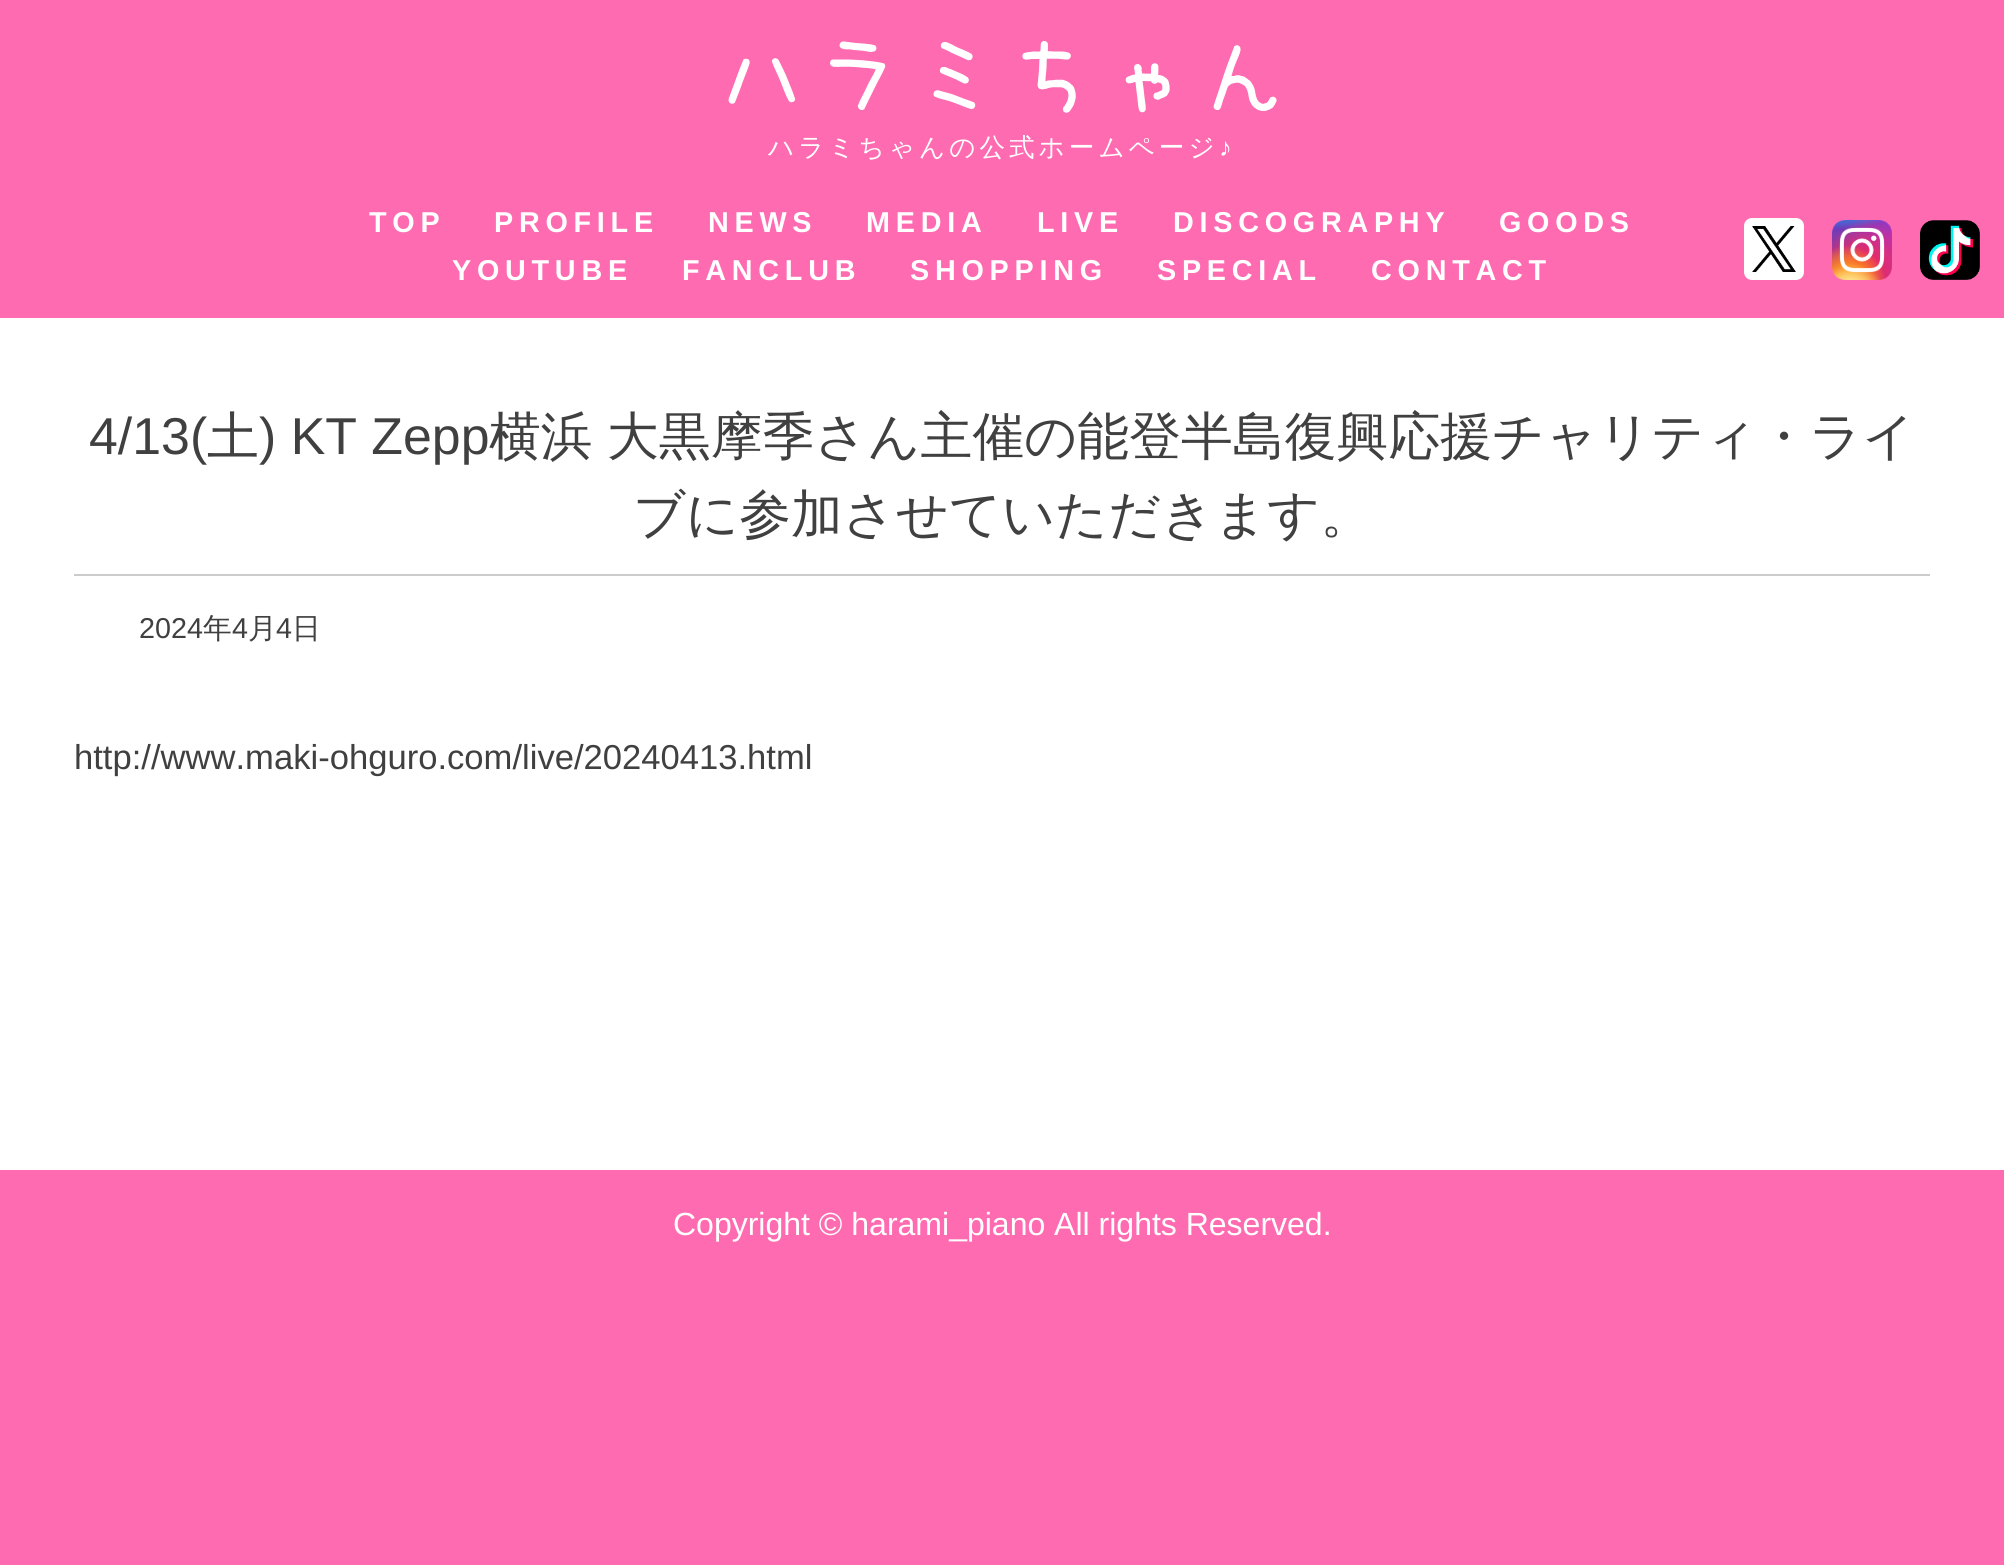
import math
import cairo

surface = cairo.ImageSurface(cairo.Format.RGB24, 2004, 1565)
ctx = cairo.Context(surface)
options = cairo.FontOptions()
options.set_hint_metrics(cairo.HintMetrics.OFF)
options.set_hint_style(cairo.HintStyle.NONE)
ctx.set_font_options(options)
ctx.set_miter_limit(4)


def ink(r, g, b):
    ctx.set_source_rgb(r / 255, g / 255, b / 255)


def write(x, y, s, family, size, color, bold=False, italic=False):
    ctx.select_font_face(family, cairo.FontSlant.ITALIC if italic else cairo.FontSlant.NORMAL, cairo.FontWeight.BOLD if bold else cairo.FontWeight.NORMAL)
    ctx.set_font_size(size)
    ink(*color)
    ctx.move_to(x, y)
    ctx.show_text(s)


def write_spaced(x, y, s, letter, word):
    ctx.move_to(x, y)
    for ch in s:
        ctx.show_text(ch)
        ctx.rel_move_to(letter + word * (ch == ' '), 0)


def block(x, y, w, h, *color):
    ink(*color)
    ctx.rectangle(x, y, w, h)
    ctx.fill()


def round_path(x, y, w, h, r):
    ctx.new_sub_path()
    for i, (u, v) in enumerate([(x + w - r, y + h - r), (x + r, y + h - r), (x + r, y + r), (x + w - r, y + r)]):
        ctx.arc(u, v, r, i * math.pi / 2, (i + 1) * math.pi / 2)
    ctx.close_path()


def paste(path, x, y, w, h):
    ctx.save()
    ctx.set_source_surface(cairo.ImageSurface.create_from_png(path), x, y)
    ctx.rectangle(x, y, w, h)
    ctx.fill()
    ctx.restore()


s1 = dict(family="Liberation Sans", size=51.85, color=(64, 64, 64))
s2 = dict(family="WenQuanYi Zen Hei Medium", size=51.85, color=(64, 64, 64))
s3 = dict(family="Liberation Sans", size=28.75, color=(64, 64, 64))
s4 = dict(family="WenQuanYi Zen Hei Medium", size=28.75, color=(64, 64, 64))
s5 = dict(family="Liberation Sans", size=34.6, color=(64, 64, 64))
s6 = dict(family="Liberation Sans", size=32, color=(255, 255, 255))

ink(255, 107, 177)
ctx.paint()
block(0, 318, 2004, 852, 255, 255, 255)
paste("pic1.png", 728, 41, 549, 72)
ctx.select_font_face("WenQuanYi Zen Hei Medium")
ctx.set_font_size(25.6)
write_spaced(768, 156, "ハラミちゃんの公式ホームページ", 4, 0)
ctx.select_font_face("Liberation Sans")
write_spaced(1219, 156, "♪", 4, 0)
round_path(1744, 218, 60, 62, 8)
ctx.fill()
paste("pic2.png", 1832, 220, 60, 60)
paste("pic3.png", 1920, 220, 60, 60)
paste("pic4.png", 1752, 226, 44, 46)
ctx.select_font_face("Liberation Sans", cairo.FontSlant.NORMAL, cairo.FontWeight.BOLD)
ctx.set_font_size(28.75)
write_spaced(369, 232, "TOP", 5.75, 0)
write_spaced(494, 232, "PROFILE", 5.75, 0)
write_spaced(708, 232, "NEWS", 5.75, 0)
write_spaced(866, 232, "MEDIA", 5.75, 0)
write_spaced(1037, 232, "LIVE", 5.75, 0)
write_spaced(1173, 232, "DISCOGRAPHY", 5.75, 0)
write_spaced(1499, 232, "GOODS", 5.75, 0)
write_spaced(452, 280, "YOUTUBE", 5.75, 0)
write_spaced(682, 280, "FANCLUB", 5.75, 0)
write_spaced(910, 280, "SHOPPING", 5.75, 0)
write_spaced(1157, 280, "SPECIAL", 5.75, 0)
write_spaced(1371, 280, "CONTACT", 5.75, 0)
block(74, 574, 1856, 2, 204, 204, 204)
write(89, 454, "4/13(", **s1)
write(207, 454, "土", **s2)
write(259, 454, ") KT Zepp", **s1)
write(489, 454, "横浜", **s2)
write(607, 454, "大黒摩季さん主催の能登半島復興応援チャリティ・ライ", **s2)
write(633, 532, "ブに参加させていただきます。", **s2)
write(139, 638, "2024", **s3)
write(203, 638, "年", **s4)
write(232, 638, "4", **s3)
write(248, 638, "月", **s4)
write(276, 638, "4", **s3)
write(292, 638, "日", **s4)
write(74, 769, "http://www.maki-ohguro.com/live/20240413.html", **s5)
write(673, 1235, "Copyright © harami_piano All rights Reserved.", **s6)
surface.write_to_png("screenshot.png")
